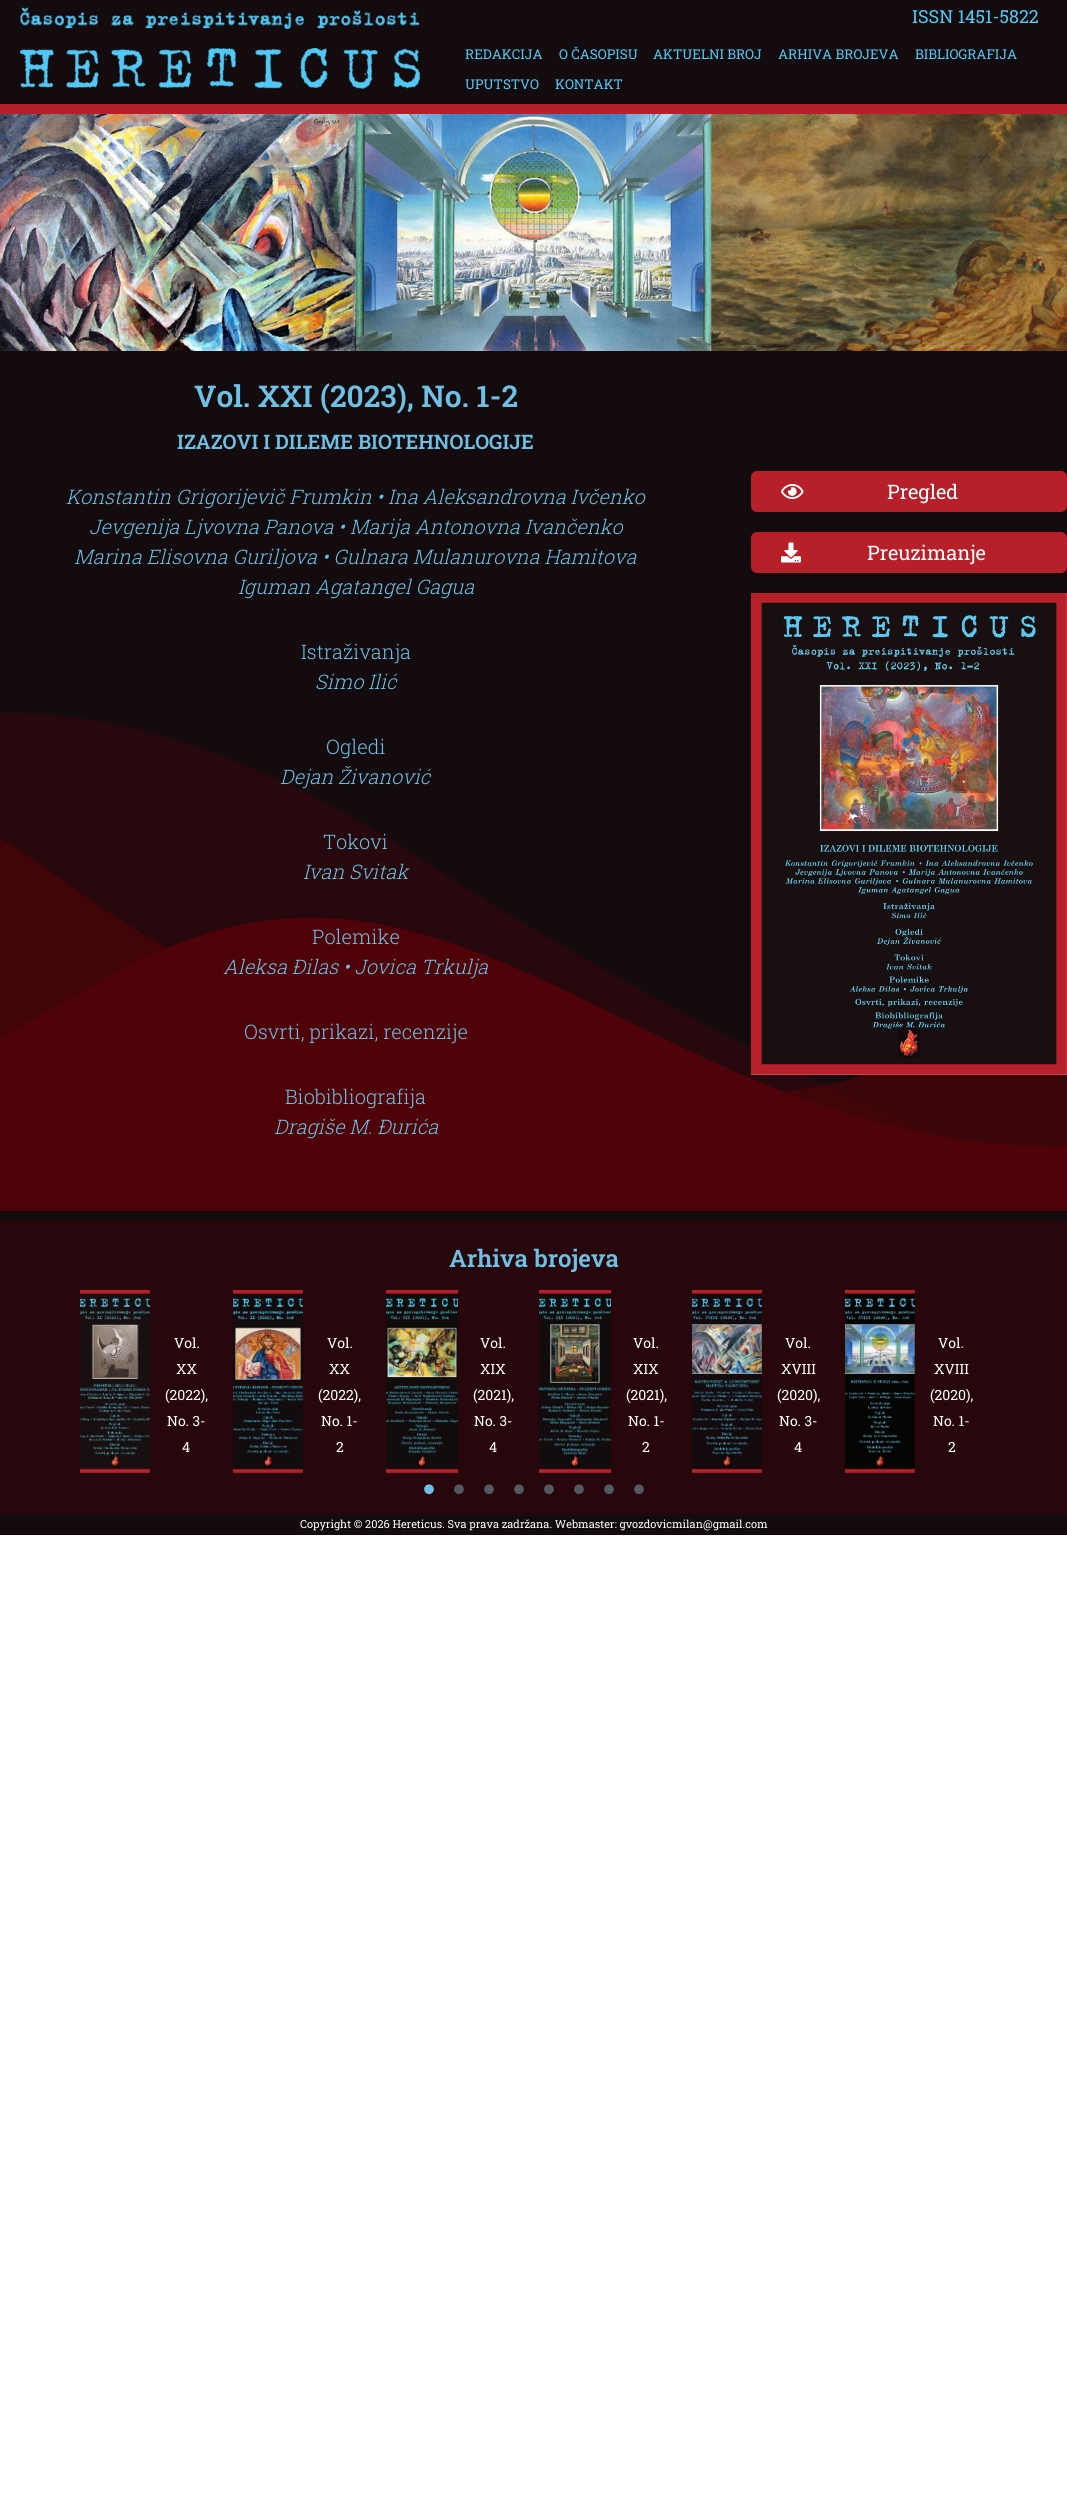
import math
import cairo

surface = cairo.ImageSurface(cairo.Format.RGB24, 1067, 2506)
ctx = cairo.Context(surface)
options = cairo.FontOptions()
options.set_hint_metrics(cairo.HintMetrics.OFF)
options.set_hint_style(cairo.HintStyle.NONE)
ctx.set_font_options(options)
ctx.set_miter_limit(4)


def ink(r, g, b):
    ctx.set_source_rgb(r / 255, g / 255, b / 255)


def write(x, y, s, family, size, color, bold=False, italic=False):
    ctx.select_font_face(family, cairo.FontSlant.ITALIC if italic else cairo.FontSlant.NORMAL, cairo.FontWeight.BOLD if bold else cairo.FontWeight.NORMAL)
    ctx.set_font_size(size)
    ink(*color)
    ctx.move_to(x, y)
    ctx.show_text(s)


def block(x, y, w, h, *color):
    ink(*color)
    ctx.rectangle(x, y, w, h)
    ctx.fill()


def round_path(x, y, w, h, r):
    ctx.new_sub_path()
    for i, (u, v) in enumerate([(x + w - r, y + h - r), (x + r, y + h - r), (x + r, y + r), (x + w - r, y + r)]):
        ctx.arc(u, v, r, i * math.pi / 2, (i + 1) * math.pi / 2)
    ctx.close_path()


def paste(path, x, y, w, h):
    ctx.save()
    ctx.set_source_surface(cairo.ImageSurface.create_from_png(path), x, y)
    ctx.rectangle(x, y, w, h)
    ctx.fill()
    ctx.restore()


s1 = dict(family="Roboto Slab", size=18, color=(82, 201, 245))
s2 = dict(family="Roboto Slab", size=13.5, color=(82, 201, 245))
s3 = dict(family="Roboto Slab SemiBold", size=30, color=(110, 193, 228))
s4 = dict(family="Roboto Slab SemiBold", size=20, color=(110, 193, 228))
s5 = dict(family="Roboto Slab Light", size=20, color=(110, 193, 228), italic=True)
s6 = dict(family="Roboto Slab Light", size=20, color=(110, 193, 228))
s7 = dict(family="Roboto Slab", size=20, color=(255, 255, 255))
s8 = dict(family="Roboto Slab SemiBold", size=24, color=(110, 193, 228))
s9 = dict(family="Roboto Slab", size=14, color=(255, 255, 255))
s10 = dict(family="Roboto Slab", size=11, color=(255, 255, 255))

ink(255, 255, 255)
ctx.paint()
block(0, 0, 1067, 104, 19, 11, 14)
paste("pic1.png", 20, 7, 400, 22)
write(912, 23, "ISSN 1451-5822", **s1)
block(0, 104, 1067, 10, 183, 31, 41)
paste("pic2.png", 20, 48, 400, 41)
write(465, 59, "REDAKCIJA", **s2)
write(559, 59, "O ČASOPISU", **s2)
write(653, 59, "AKTUELNI BROJ", **s2)
write(778, 59, "ARHIVA BROJEVA", **s2)
write(915, 59, "BIBLIOGRAFIJA", **s2)
write(465, 89, "UPUTSTVO", **s2)
write(555, 89, "KONTAKT", **s2)
paste("pic3.png", 0, 114, 1067, 237)
block(0, 351, 1067, 796, 19, 11, 14)
write(194, 407, "Vol. XXI (2023), No. 1-2", **s3)
write(177, 449, "IZAZOVI I DILEME BIOTEHNOLOGIJE", **s4)
write(66, 504, "Konstantin Grigorijevič Frumkin • Ina Aleksandrovna Ivčenko", **s5)
write(89, 534, "Jevgenija Ljvovna Panova • Marija Antonovna Ivančenko", **s5)
write(74, 564, "Marina Elisovna Guriljova • Gulnara Mulanurovna Hamitova", **s5)
write(238, 594, "Iguman Agatangel Gagua", **s5)
write(301, 659, "Istraživanja", **s6)
write(315, 689, "Simo Ilić", **s5)
paste("pic7.png", 0, 712, 1067, 499)
write(326, 754, "Ogledi", **s6)
write(280, 784, "Dejan Živanović", **s5)
write(323, 849, "Tokovi", **s6)
write(303, 879, "Ivan Svitak", **s5)
write(312, 944, "Polemike", **s6)
write(223, 974, "Aleksa Đilas • Jovica Trkulja", **s5)
write(244, 1039, "Osvrti, prikazi, recenzije", **s6)
write(285, 1104, "Biobibliografija", **s6)
write(274, 1134, "Dragiše M. Đurića", **s5)
ink(183, 31, 41)
round_path(751, 471, 316, 41, 6)
ctx.fill()
paste("pic4.png", 781, 484, 23, 15)
write(887, 499, "Pregled", **s7)
ink(183, 31, 41)
round_path(751, 532, 316, 41, 6)
ctx.fill()
paste("pic5.png", 781, 542, 20, 21)
write(867, 560, "Preuzimanje", **s7)
paste("pic6.png", 751, 593, 316, 482)
block(0, 1221, 1067, 293, 39, 7, 11)
block(0, 1211, 1067, 10, 19, 11, 14)
write(449, 1267, "Arhiva brojeva", **s8)
paste("pic8.png", 80, 1290, 70, 183)
write(174, 1348, "Vol.", **s9)
write(176, 1374, "XX", **s9)
write(165, 1400, "(2022),", **s9)
write(167, 1426, "No. 3-", **s9)
write(182, 1452, "4", **s9)
paste("pic9.png", 233, 1290, 70, 183)
write(327, 1348, "Vol.", **s9)
write(329, 1374, "XX", **s9)
write(318, 1400, "(2022),", **s9)
write(321, 1426, "No. 1-", **s9)
write(336, 1452, "2", **s9)
paste("pic10.png", 386, 1290, 72, 183)
write(480, 1348, "Vol.", **s9)
write(480, 1374, "XIX", **s9)
write(473, 1400, "(2021),", **s9)
write(474, 1426, "No. 3-", **s9)
write(489, 1452, "4", **s9)
paste("pic11.png", 539, 1290, 72, 183)
write(633, 1348, "Vol.", **s9)
write(633, 1374, "XIX", **s9)
write(626, 1400, "(2021),", **s9)
write(628, 1426, "No. 1-", **s9)
write(642, 1452, "2", **s9)
paste("pic12.png", 692, 1290, 70, 183)
write(785, 1348, "Vol.", **s9)
write(781, 1374, "XVIII", **s9)
write(777, 1400, "(2020),", **s9)
write(779, 1426, "No. 3-", **s9)
write(794, 1452, "4", **s9)
paste("pic13.png", 845, 1290, 70, 183)
write(938, 1348, "Vol.", **s9)
write(934, 1374, "XVIII", **s9)
write(930, 1400, "(2020),", **s9)
write(933, 1426, "No. 1-", **s9)
write(948, 1452, "2", **s9)
paste("pic14.png", 424, 1484, 10, 11)
paste("pic15.png", 454, 1484, 10, 10)
paste("pic15.png", 484, 1484, 10, 10)
paste("pic15.png", 514, 1484, 10, 10)
paste("pic15.png", 544, 1484, 10, 10)
paste("pic15.png", 574, 1484, 10, 10)
paste("pic15.png", 604, 1484, 10, 10)
paste("pic15.png", 634, 1484, 10, 10)
block(0, 1514, 1067, 21, 19, 11, 14)
write(300, 1528, "Copyright © 2026 Hereticus. Sva prava zadržana. Webmaster: gvozdovicmilan@gmail.com", **s10)
surface.write_to_png("screenshot.png")
